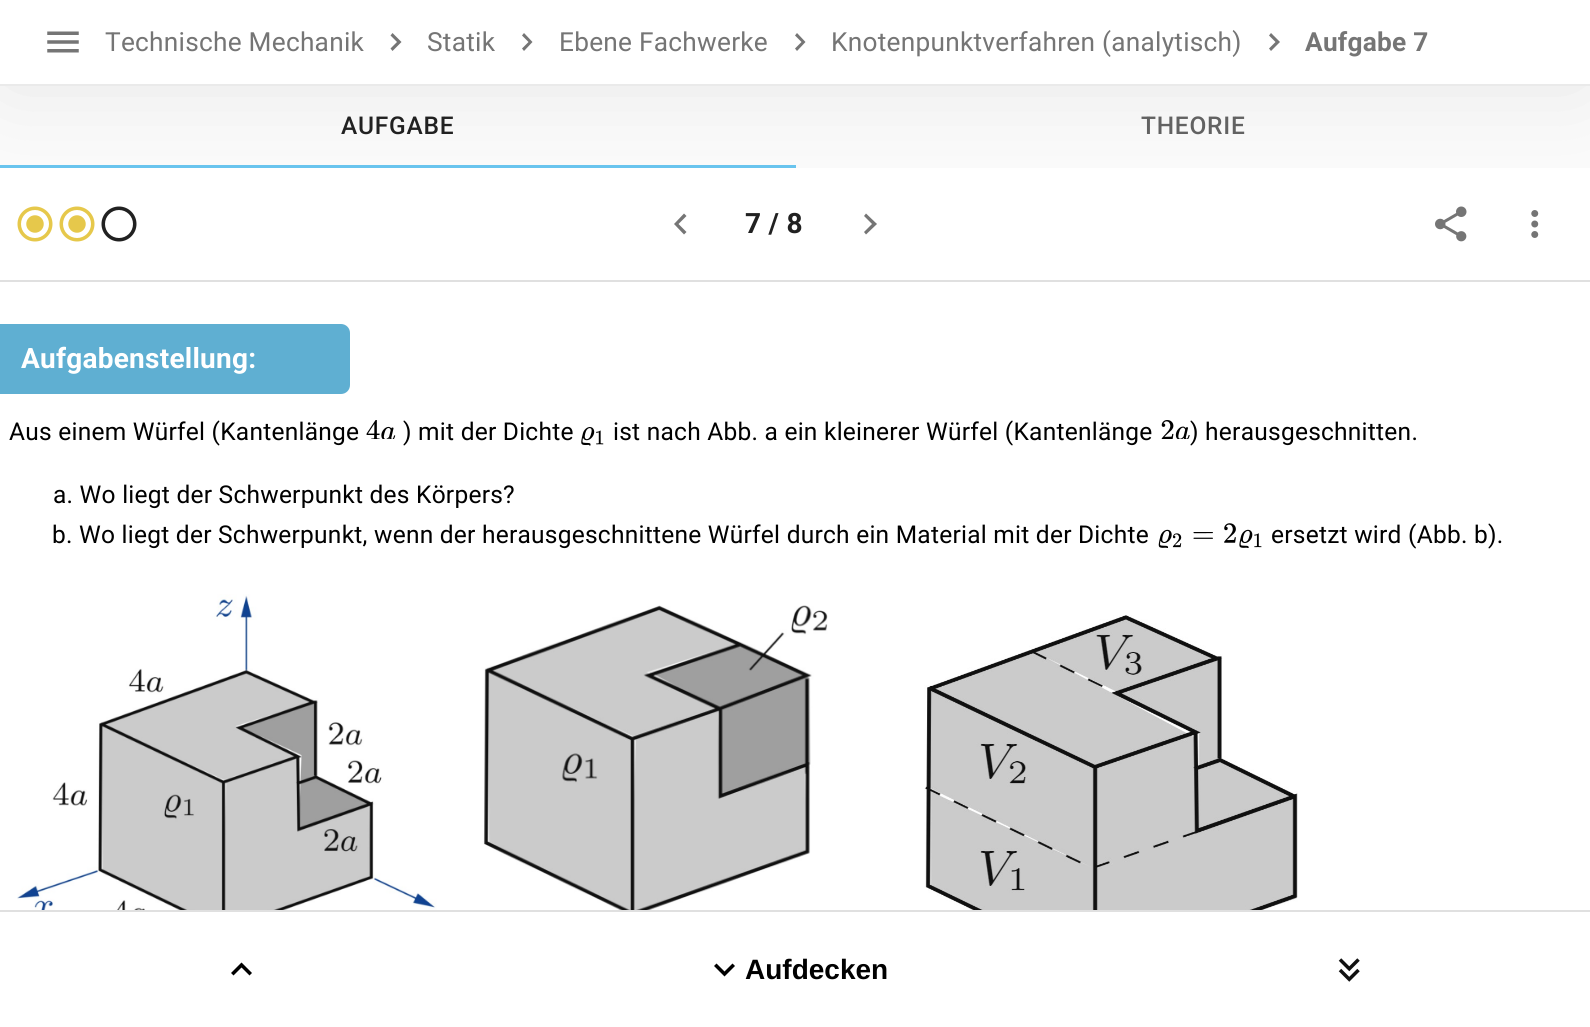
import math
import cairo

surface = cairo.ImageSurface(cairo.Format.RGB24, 1590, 1027)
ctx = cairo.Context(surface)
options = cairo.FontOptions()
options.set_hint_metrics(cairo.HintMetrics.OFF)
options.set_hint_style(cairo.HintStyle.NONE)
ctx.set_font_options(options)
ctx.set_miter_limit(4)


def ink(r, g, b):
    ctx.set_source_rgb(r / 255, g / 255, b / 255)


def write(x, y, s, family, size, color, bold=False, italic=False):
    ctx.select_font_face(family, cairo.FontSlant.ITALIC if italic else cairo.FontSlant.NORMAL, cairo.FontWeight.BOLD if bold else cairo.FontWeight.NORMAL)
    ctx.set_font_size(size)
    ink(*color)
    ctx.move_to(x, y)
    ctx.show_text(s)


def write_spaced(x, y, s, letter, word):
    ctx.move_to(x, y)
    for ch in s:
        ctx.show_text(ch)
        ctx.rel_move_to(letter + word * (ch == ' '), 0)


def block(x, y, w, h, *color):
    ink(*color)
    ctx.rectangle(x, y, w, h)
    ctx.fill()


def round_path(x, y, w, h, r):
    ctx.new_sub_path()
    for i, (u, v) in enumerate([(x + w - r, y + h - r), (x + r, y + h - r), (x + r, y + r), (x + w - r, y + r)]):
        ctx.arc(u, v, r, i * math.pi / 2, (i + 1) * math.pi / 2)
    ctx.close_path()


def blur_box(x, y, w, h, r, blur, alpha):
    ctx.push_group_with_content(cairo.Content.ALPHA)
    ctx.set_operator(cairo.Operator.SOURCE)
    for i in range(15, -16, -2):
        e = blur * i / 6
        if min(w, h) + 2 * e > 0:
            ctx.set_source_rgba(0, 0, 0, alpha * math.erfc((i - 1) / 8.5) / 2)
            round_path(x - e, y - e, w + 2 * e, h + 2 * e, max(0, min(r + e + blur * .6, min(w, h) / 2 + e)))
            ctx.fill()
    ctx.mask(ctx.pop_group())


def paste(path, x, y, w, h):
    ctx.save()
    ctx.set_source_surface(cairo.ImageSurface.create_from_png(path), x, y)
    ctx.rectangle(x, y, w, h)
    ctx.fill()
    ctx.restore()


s1 = dict(family="Liberation Sans", size=28, color=(0, 0, 0), bold=True)

ink(250, 250, 250)
ctx.paint()
block(0, 165, 796, 3, 105, 196, 238)
block(0, 168, 1590, 742, 255, 255, 255)
paste("pic2.png", 17, 206, 36, 36)
paste("pic2.png", 59, 206, 36, 36)
paste("pic3.png", 101, 206, 36, 36)
paste("pic4.png", 1435, 206, 32, 36)
ink(0, 0, 0)
blur_box(9, 9, 1573, 66, 0, 44, 0.1)
block(0, 0, 1590, 84, 255, 255, 255)
paste("pic1.png", 47, 31, 32, 22)
ctx.select_font_face("Roboto")
ctx.set_font_size(26.25)
ink(117, 117, 117)
write_spaced(105, 51, "Technische Mechanik", 0.25, 0)
ctx.new_path()
ctx.move_to(392.5, 33)
ctx.line_to(390.5, 35.5)
ctx.line_to(397, 42)
ctx.line_to(390.5, 48.5)
ctx.line_to(392.5, 51)
ctx.line_to(401.5, 42)
ctx.close_path()
ctx.fill()
write_spaced(427, 51, "Statik", 0.25, 0)
ctx.new_path()
ctx.move_to(524, 33)
ctx.line_to(522, 35.5)
ctx.line_to(528.5, 42)
ctx.line_to(522, 48.5)
ctx.line_to(524, 51)
ctx.line_to(532.5, 42)
ctx.close_path()
ctx.fill()
write_spaced(559, 51, "Ebene Fachwerke", 0.25, 0)
ctx.new_path()
ctx.move_to(797, 33)
ctx.line_to(795, 35.5)
ctx.line_to(801.5, 42)
ctx.line_to(795, 48.5)
ctx.line_to(797, 51)
ctx.line_to(805.5, 42)
ctx.close_path()
ctx.fill()
write_spaced(831, 51, "Knotenpunktverfahren (analytisch)", 0.25, 0)
ctx.new_path()
ctx.move_to(1271, 33)
ctx.line_to(1269, 35.5)
ctx.line_to(1275.5, 42)
ctx.line_to(1269, 48.5)
ctx.line_to(1271, 51)
ctx.line_to(1280, 42)
ctx.close_path()
ctx.fill()
ctx.select_font_face("Roboto", cairo.FontSlant.NORMAL, cairo.FontWeight.BOLD)
write_spaced(1305, 51, "Aufgabe 7", 0.25, 0)
block(0, 84, 1590, 2, 234, 234, 234)
ctx.select_font_face("Roboto Medium")
ctx.set_font_size(24.5)
ink(33, 33, 33)
write_spaced(341, 134, "AUFGABE", 0.75, 0)
ink(98, 98, 98)
write_spaced(1141, 134, "THEORIE", 0.75, 0)
ink(117, 117, 117)
ctx.new_path()
ctx.move_to(686.5, 216)
ctx.line_to(684, 213.5)
ctx.line_to(674, 224)
ctx.line_to(684, 234.5)
ctx.line_to(686.5, 232)
ctx.line_to(678.5, 224)
ctx.close_path()
ctx.fill()
ctx.select_font_face("Roboto", cairo.FontSlant.NORMAL, cairo.FontWeight.BOLD)
ctx.set_font_size(28)
ink(33, 33, 33)
write_spaced(745, 233, "7 / 8", 0.25, 0)
ink(117, 117, 117)
ctx.new_path()
ctx.move_to(866, 213.5)
ctx.line_to(864, 216)
ctx.line_to(872, 224)
ctx.line_to(864, 232)
ctx.line_to(866, 234.5)
ctx.line_to(877, 224)
ctx.close_path()
ctx.fill()
paste("pic5.png", 1531, 210, 8, 28)
block(0, 280, 1590, 2, 224, 224, 224)
ink(95, 175, 210)
ctx.new_path()
ctx.move_to(0, 324)
ctx.line_to(341, 324)
ctx.curve_to(346, 324, 350, 328, 350, 333)
ctx.line_to(350, 385)
ctx.curve_to(350, 390, 346, 394, 341, 394)
ctx.line_to(0, 394)
ctx.close_path()
ctx.fill()
ink(255, 255, 255)
write_spaced(21, 368, "Aufgabenstellung:", 0.25, 0)
ctx.select_font_face("Roboto")
ctx.set_font_size(24.5)
ink(0, 0, 0)
write_spaced(9, 440, "Aus einem Würfel (Kantenlänge", 0.25, 0)
paste("pic6.png", 366, 420, 30, 19)
write_spaced(403, 440, ") mit der Dichte", 0.25, 0)
paste("pic7.png", 581, 427, 23, 19)
write_spaced(613, 440, "ist nach Abb. a ein kleinerer Würfel (Kantenlänge", 0.25, 0)
paste("pic8.png", 1161, 420, 29, 19)
write_spaced(1190, 440, ") herausgeschnitten.", 0.25, 0)
write_spaced(53, 503, "a. Wo liegt der Schwerpunkt des Körpers?", 0.25, 0)
write_spaced(52, 543, "b. Wo liegt der Schwerpunkt, wenn der herausgeschnittene Würfel durch ein Material mit der Dichte", 0.25, 0)
paste("pic9.png", 1158, 523, 104, 25)
write_spaced(1271, 543, "ersetzt wird (Abb. b).", 0.25, 0)
paste("pic10.png", 17, 594, 420, 316)
paste("pic11.png", 478, 605, 350, 305)
paste("pic12.png", 924, 615, 374, 295)
block(0, 912, 1590, 115, 255, 255, 255)
block(0, 910, 1590, 2, 224, 224, 224)
ink(0, 0, 0)
ctx.new_path()
ctx.move_to(241.5, 962.5)
ctx.line_to(231, 973)
ctx.line_to(233.5, 975.5)
ctx.line_to(241.5, 967.5)
ctx.line_to(249.5, 975.5)
ctx.line_to(252, 973)
ctx.close_path()
ctx.fill()
ctx.new_path()
ctx.move_to(732.5, 963.5)
ctx.line_to(724.5, 971.5)
ctx.line_to(716.5, 963.5)
ctx.line_to(714, 966)
ctx.line_to(724.5, 976.5)
ctx.line_to(735, 966)
ctx.close_path()
ctx.fill()
write(745, 979, "Aufdecken", **s1)
paste("pic13.png", 1338, 958, 22, 24)
surface.write_to_png("screenshot.png")
